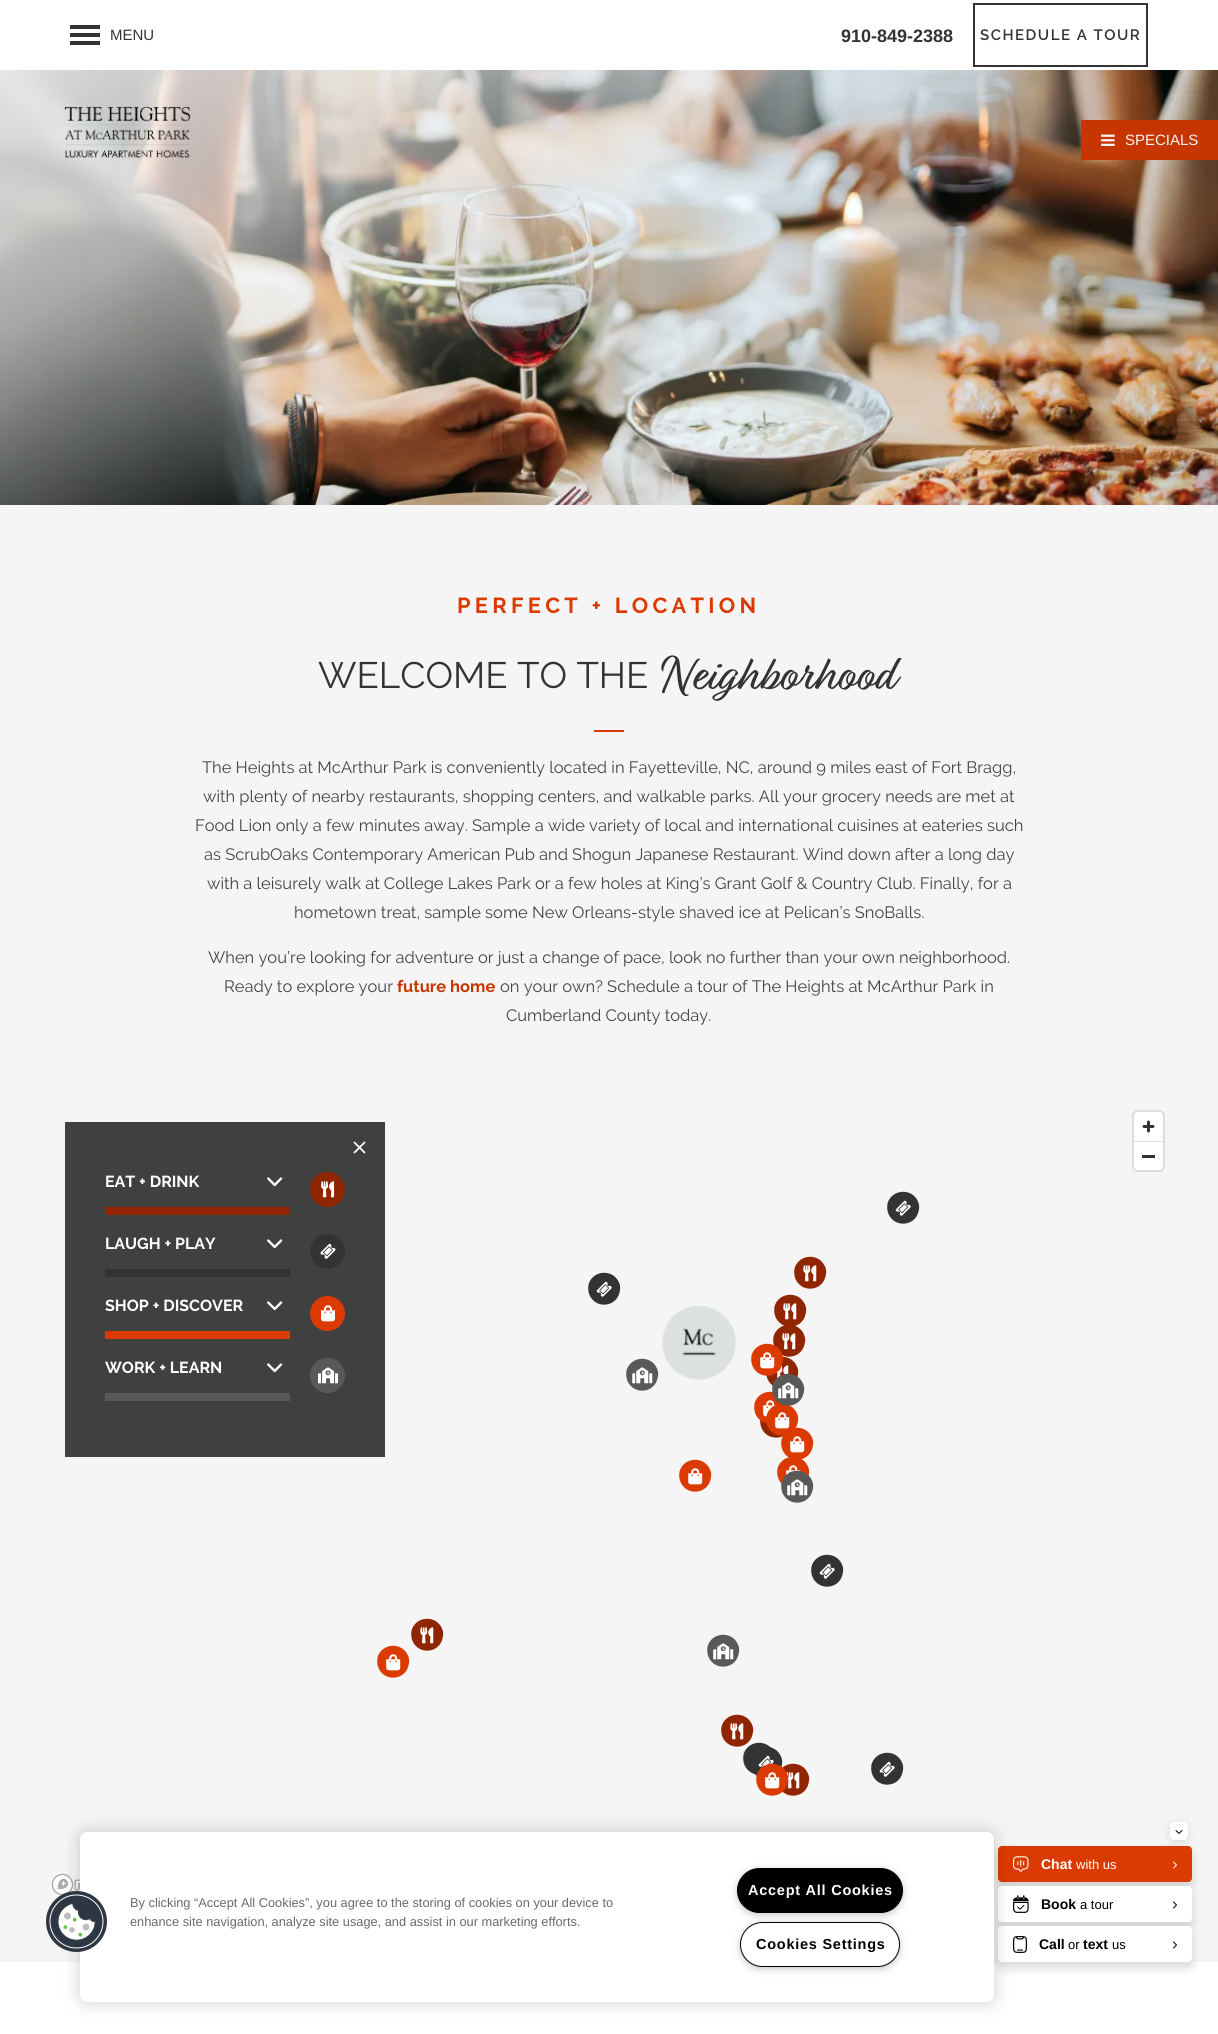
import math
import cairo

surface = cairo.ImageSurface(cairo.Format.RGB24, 1218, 2034)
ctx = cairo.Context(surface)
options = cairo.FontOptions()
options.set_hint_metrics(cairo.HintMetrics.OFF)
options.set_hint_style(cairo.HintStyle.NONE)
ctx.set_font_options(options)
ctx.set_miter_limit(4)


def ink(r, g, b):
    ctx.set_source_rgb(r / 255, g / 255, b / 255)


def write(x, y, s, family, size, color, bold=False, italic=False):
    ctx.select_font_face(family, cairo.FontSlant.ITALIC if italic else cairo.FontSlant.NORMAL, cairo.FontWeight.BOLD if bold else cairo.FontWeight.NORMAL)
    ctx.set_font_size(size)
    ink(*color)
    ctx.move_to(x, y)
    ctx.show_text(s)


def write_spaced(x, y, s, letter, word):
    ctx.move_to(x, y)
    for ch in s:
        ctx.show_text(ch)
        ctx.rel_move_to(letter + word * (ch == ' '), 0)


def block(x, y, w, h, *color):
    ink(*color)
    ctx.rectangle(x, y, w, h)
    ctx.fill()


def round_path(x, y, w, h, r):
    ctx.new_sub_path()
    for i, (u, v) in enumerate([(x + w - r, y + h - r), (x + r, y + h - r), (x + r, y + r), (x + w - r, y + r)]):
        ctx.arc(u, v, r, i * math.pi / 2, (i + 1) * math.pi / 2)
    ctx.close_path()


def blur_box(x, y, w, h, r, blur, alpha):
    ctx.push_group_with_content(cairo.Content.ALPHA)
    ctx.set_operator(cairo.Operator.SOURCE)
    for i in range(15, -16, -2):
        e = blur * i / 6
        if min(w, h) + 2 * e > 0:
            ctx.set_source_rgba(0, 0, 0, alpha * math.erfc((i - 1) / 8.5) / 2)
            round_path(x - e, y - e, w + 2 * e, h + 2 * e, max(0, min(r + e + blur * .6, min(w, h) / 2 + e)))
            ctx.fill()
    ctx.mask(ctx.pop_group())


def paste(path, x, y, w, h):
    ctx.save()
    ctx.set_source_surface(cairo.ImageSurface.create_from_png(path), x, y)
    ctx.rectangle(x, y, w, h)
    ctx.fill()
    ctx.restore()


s1 = dict(family="Liberation Sans", size=15, color=(51, 51, 51))
s2 = dict(family="Liberation Sans", size=18, color=(51, 51, 51), bold=True)
s3 = dict(family="Liberation Sans", size=15, color=(245, 245, 245))
s4 = dict(family="Raleway", size=36.75, color=(51, 51, 51))
s5 = dict(family="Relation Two", size=49.5, color=(51, 51, 51))
s6 = dict(family="Raleway", size=16.5, color=(68, 68, 68))
s7 = dict(family="Raleway", size=16.5, color=(199, 53, 0), bold=True)
s8 = dict(family="Raleway", size=16, color=(255, 255, 255), bold=True)
s9 = dict(family="Liberation Sans", size=12.8, color=(105, 105, 105))
s10 = dict(family="Liberation Sans", size=14, color=(255, 255, 255), bold=True)
s11 = dict(family="Liberation Sans", size=13, color=(255, 255, 255))
s12 = dict(family="Liberation Sans", size=14, color=(0, 0, 0), bold=True)
s13 = dict(family="Liberation Sans", size=13, color=(0, 0, 0))

ink(255, 255, 255)
ctx.paint()
block(70, 25, 30, 4, 51, 51, 51)
block(70, 33, 30, 4, 51, 51, 51)
block(70, 41, 30, 4, 51, 51, 51)
write(110, 40, "MENU", **s1)
write(841, 42, "910-849-2388", **s2)
ctx.rectangle(974, 4, 173, 62)
ctx.stroke()
ctx.select_font_face("Raleway SemiBold")
ctx.set_font_size(15)
write_spaced(980, 40, "SCHEDULE A TOUR", 1.5, 0)
paste("pic3.png", 0, 70, 1218, 435)
paste("pic1.png", 64, 106, 127, 53)
block(1081, 120, 137, 40, 199, 53, 0)
paste("pic2.png", 1101, 134, 14, 12)
write(1125, 145, "SPECIALS", **s3)
block(0, 505, 1218, 1457, 245, 245, 245)
ctx.select_font_face("Raleway", cairo.FontSlant.NORMAL, cairo.FontWeight.BOLD)
ctx.set_font_size(21.75)
ink(219, 58, 0)
write_spaced(457, 613, "PERFECT + LOCATION", 4.3, 0)
write(318, 688, "WELCOME TO THE", **s4)
write(662, 688, "Neighborhood", **s5)
block(594, 730, 30, 2, 219, 58, 0)
write(202, 773, "The Heights at McArthur Park is conveniently located in Fayetteville, NC, around 9 miles east of Fort Bragg,", **s6)
write(203, 802, "with plenty of nearby restaurants, shopping centers, and walkable parks. All your grocery needs are met at", **s6)
write(195, 831, "Food Lion only a few minutes away. Sample a wide variety of local and international cuisines at eateries such", **s6)
write(204, 860, "as ScrubOaks Contemporary American Pub and Shogun Japanese Restaurant. Wind down after a long day", **s6)
write(207, 889, "with a leisurely walk at College Lakes Park or a few holes at King’s Grant Golf & Country Club. Finally, for a", **s6)
write(294, 918, "hometown treat, sample some New Orleans-style shaved ice at Pelican’s SnoBalls.", **s6)
write(208, 963, "When you’re looking for adventure or just a change of pace, look no further than your own neighborhood.", **s6)
write(224, 992, "Ready to explore your", **s6)
write(397, 992, "future home", **s7)
write(500, 992, "on your own? Schedule a tour of The Heights at McArthur Park in", **s6)
write(506, 1021, "Cumberland County today.", **s6)
round_path(1133, 1111, 31, 60, 5)
ink(221, 221, 221)
ctx.stroke()
ink(255, 255, 255)
round_path(1134, 1112, 29, 58, 4)
ctx.fill()
paste("pic4.png", 1142, 1120, 13, 13)
block(1134, 1141, 29, 1, 221, 221, 221)
block(1142, 1155, 13, 3, 51, 51, 51)
paste("pic5.png", 51, 1873, 29, 23)
ctx.new_path()
ctx.move_to(888.5, 1214)
ctx.curve_to(887, 1210.5, 887, 1207, 887.5, 1203.5)
ctx.curve_to(891.5, 1189, 912, 1187.5, 918, 1201.5)
ctx.curve_to(919.5, 1204.5, 919.5, 1208, 918.5, 1211.5)
ctx.curve_to(915, 1226.5, 894.5, 1228, 888.5, 1214)
ctx.close_path()
ctx.fill()
paste("pic6.png", 895, 1200, 16, 16)
ctx.new_path()
ctx.move_to(589.5, 1295)
ctx.curve_to(588, 1291.5, 588, 1288, 588.5, 1284.5)
ctx.curve_to(592.5, 1270, 613, 1268.5, 619, 1282.5)
ctx.curve_to(620.5, 1285.5, 620.5, 1289, 619.5, 1292.5)
ctx.curve_to(616, 1307.5, 595.5, 1309, 589.5, 1295)
ctx.close_path()
ctx.fill()
paste("pic6.png", 596, 1281, 16, 16)
ink(143, 38, 0)
ctx.new_path()
ctx.move_to(795.5, 1279)
ctx.curve_to(794, 1275.5, 794, 1272, 794.5, 1268.5)
ctx.curve_to(798.5, 1254, 819, 1252.5, 825, 1266.5)
ctx.curve_to(826.5, 1269.5, 826.5, 1273, 825.5, 1276.5)
ctx.curve_to(822, 1291.5, 801.5, 1293, 795.5, 1279)
ctx.close_path()
ctx.fill()
paste("pic7.png", 803, 1265, 14, 17)
paste("pic8.png", 662, 1305, 74, 75)
ctx.new_path()
ctx.move_to(767.5, 1379)
ctx.curve_to(766, 1375.5, 766, 1372, 766.5, 1368.5)
ctx.curve_to(770.5, 1354, 791, 1352.5, 797, 1366.5)
ctx.curve_to(798.5, 1369.5, 798.5, 1373, 797.5, 1376.5)
ctx.curve_to(794, 1391.5, 773.5, 1393, 767.5, 1379)
ctx.close_path()
ctx.fill()
ctx.new_path()
ctx.move_to(774.5, 1347)
ctx.curve_to(773, 1343.5, 773, 1340, 773.5, 1336.5)
ctx.curve_to(777.5, 1322, 798, 1320.5, 804, 1334.5)
ctx.curve_to(805.5, 1337.5, 805.5, 1341, 804.5, 1344.5)
ctx.curve_to(801, 1359.5, 780.5, 1361, 774.5, 1347)
ctx.close_path()
ctx.fill()
ctx.new_path()
ctx.move_to(775.5, 1317)
ctx.curve_to(774, 1313.5, 774, 1310, 774.5, 1306.5)
ctx.curve_to(778.5, 1292, 799, 1290.5, 805, 1304.5)
ctx.curve_to(806.5, 1307.5, 806.5, 1311, 805.5, 1314.5)
ctx.curve_to(802, 1329.5, 781.5, 1331, 775.5, 1317)
ctx.close_path()
ctx.fill()
paste("pic7.png", 783, 1303, 14, 17)
paste("pic7.png", 782, 1333, 14, 17)
paste("pic11.png", 776, 1365, 13, 13)
ink(219, 58, 0)
ctx.new_path()
ctx.move_to(752.5, 1366)
ctx.curve_to(751, 1362.5, 751, 1359, 751.5, 1355.5)
ctx.curve_to(755.5, 1341, 776, 1339.5, 782, 1353.5)
ctx.curve_to(783.5, 1356.5, 783.5, 1360, 782.5, 1363.5)
ctx.curve_to(779, 1378.5, 758.5, 1380, 752.5, 1366)
ctx.close_path()
ctx.fill()
paste("pic9.png", 760, 1352, 15, 17)
ink(89, 89, 89)
ctx.new_path()
ctx.move_to(627.5, 1381)
ctx.curve_to(626, 1377.5, 626, 1374, 626.5, 1370.5)
ctx.curve_to(630.5, 1356, 651, 1354.5, 657, 1368.5)
ctx.curve_to(658.5, 1371.5, 658.5, 1375, 657.5, 1378.5)
ctx.curve_to(654, 1393.5, 633.5, 1395, 627.5, 1381)
ctx.close_path()
ctx.fill()
paste("pic10.png", 632, 1367, 21, 17)
ink(143, 38, 0)
ctx.new_path()
ctx.move_to(761.5, 1428)
ctx.curve_to(760, 1424.5, 760, 1421, 760.5, 1417.5)
ctx.curve_to(764.5, 1403, 785, 1401.5, 791, 1415.5)
ctx.curve_to(792.5, 1418.5, 792.5, 1422, 791.5, 1425.5)
ctx.curve_to(788, 1440.5, 767.5, 1442, 761.5, 1428)
ctx.close_path()
ctx.fill()
ink(219, 58, 0)
ctx.new_path()
ctx.move_to(755.5, 1414)
ctx.curve_to(754, 1410.5, 754, 1407, 754.5, 1403.5)
ctx.curve_to(758.5, 1389, 779, 1387.5, 785, 1401.5)
ctx.curve_to(786.5, 1404.5, 786.5, 1408, 785.5, 1411.5)
ctx.curve_to(782, 1426.5, 761.5, 1428, 755.5, 1414)
ctx.close_path()
ctx.fill()
paste("pic12.png", 763, 1400, 13, 17)
ctx.new_path()
ctx.move_to(767.5, 1426)
ctx.curve_to(766, 1422.5, 766, 1419, 766.5, 1415.5)
ctx.curve_to(770.5, 1401, 791, 1399.5, 797, 1413.5)
ctx.curve_to(798.5, 1416.5, 798.5, 1420, 797.5, 1423.5)
ctx.curve_to(794, 1438.5, 773.5, 1440, 767.5, 1426)
ctx.close_path()
ctx.fill()
ink(89, 89, 89)
ctx.new_path()
ctx.move_to(773.5, 1396)
ctx.curve_to(772, 1392.5, 772, 1389, 772.5, 1385.5)
ctx.curve_to(776.5, 1371, 797, 1369.5, 803, 1383.5)
ctx.curve_to(804.5, 1386.5, 804.5, 1390, 803.5, 1393.5)
ctx.curve_to(800, 1408.5, 779.5, 1410, 773.5, 1396)
ctx.close_path()
ctx.fill()
paste("pic10.png", 778, 1382, 21, 17)
paste("pic9.png", 775, 1412, 15, 17)
ink(219, 58, 0)
ctx.new_path()
ctx.move_to(778.5, 1479)
ctx.curve_to(777, 1475.5, 777, 1472, 777.5, 1468.5)
ctx.curve_to(781.5, 1454, 802, 1452.5, 808, 1466.5)
ctx.curve_to(809.5, 1469.5, 809.5, 1473, 808.5, 1476.5)
ctx.curve_to(805, 1491.5, 784.5, 1493, 778.5, 1479)
ctx.close_path()
ctx.fill()
ctx.new_path()
ctx.move_to(782.5, 1450)
ctx.curve_to(781, 1446.5, 781, 1443, 781.5, 1439.5)
ctx.curve_to(785.5, 1425, 806, 1423.5, 812, 1437.5)
ctx.curve_to(813.5, 1440.5, 813.5, 1444, 812.5, 1447.5)
ctx.curve_to(809, 1462.5, 788.5, 1464, 782.5, 1450)
ctx.close_path()
ctx.fill()
paste("pic9.png", 790, 1436, 15, 17)
ctx.new_path()
ctx.move_to(680.5, 1482)
ctx.curve_to(679, 1478.5, 679, 1475, 679.5, 1471.5)
ctx.curve_to(683.5, 1457, 704, 1455.5, 710, 1469.5)
ctx.curve_to(711.5, 1472.5, 711.5, 1476, 710.5, 1479.5)
ctx.curve_to(707, 1494.5, 686.5, 1496, 680.5, 1482)
ctx.close_path()
ctx.fill()
paste("pic9.png", 688, 1468, 15, 17)
paste("pic13.png", 786, 1465, 15, 10)
ink(89, 89, 89)
ctx.new_path()
ctx.move_to(782.5, 1493)
ctx.curve_to(781, 1489.5, 781, 1486, 781.5, 1482.5)
ctx.curve_to(785.5, 1468, 806, 1466.5, 812, 1480.5)
ctx.curve_to(813.5, 1483.5, 813.5, 1487, 812.5, 1490.5)
ctx.curve_to(809, 1505.5, 788.5, 1507, 782.5, 1493)
ctx.close_path()
ctx.fill()
paste("pic10.png", 787, 1479, 21, 17)
ink(51, 51, 51)
ctx.new_path()
ctx.move_to(812.5, 1577)
ctx.curve_to(811, 1573.5, 811, 1570, 811.5, 1566.5)
ctx.curve_to(815.5, 1552, 836, 1550.5, 842, 1564.5)
ctx.curve_to(843.5, 1567.5, 843.5, 1571, 842.5, 1574.5)
ctx.curve_to(839, 1589.5, 818.5, 1591, 812.5, 1577)
ctx.close_path()
ctx.fill()
paste("pic6.png", 819, 1563, 16, 16)
ink(219, 58, 0)
ctx.new_path()
ctx.move_to(378.5, 1668)
ctx.curve_to(377, 1664.5, 377, 1661, 377.5, 1657.5)
ctx.curve_to(381.5, 1643, 402, 1641.5, 408, 1655.5)
ctx.curve_to(409.5, 1658.5, 409.5, 1662, 408.5, 1665.5)
ctx.curve_to(405, 1680.5, 384.5, 1682, 378.5, 1668)
ctx.close_path()
ctx.fill()
paste("pic9.png", 386, 1654, 15, 17)
ink(143, 38, 0)
ctx.new_path()
ctx.move_to(412.5, 1641)
ctx.curve_to(411, 1637.5, 411, 1634, 411.5, 1630.5)
ctx.curve_to(415.5, 1616, 436, 1614.5, 442, 1628.5)
ctx.curve_to(443.5, 1631.5, 443.5, 1635, 442.5, 1638.5)
ctx.curve_to(439, 1653.5, 418.5, 1655, 412.5, 1641)
ctx.close_path()
ctx.fill()
paste("pic7.png", 420, 1627, 14, 17)
ink(89, 89, 89)
ctx.new_path()
ctx.move_to(708.5, 1657)
ctx.curve_to(707, 1653.5, 707, 1650, 707.5, 1646.5)
ctx.curve_to(711.5, 1632, 732, 1630.5, 738, 1644.5)
ctx.curve_to(739.5, 1647.5, 739.5, 1651, 738.5, 1654.5)
ctx.curve_to(735, 1669.5, 714.5, 1671, 708.5, 1657)
ctx.close_path()
ctx.fill()
paste("pic10.png", 713, 1643, 21, 17)
ink(143, 38, 0)
ctx.new_path()
ctx.move_to(722.5, 1737)
ctx.curve_to(721, 1733.5, 721, 1730, 721.5, 1726.5)
ctx.curve_to(725.5, 1712, 746, 1710.5, 752, 1724.5)
ctx.curve_to(753.5, 1727.5, 753.5, 1731, 752.5, 1734.5)
ctx.curve_to(749, 1749.5, 728.5, 1751, 722.5, 1737)
ctx.close_path()
ctx.fill()
paste("pic7.png", 730, 1723, 14, 17)
ink(51, 51, 51)
ctx.new_path()
ctx.move_to(744.5, 1765)
ctx.curve_to(743, 1761.5, 743, 1758, 743.5, 1754.5)
ctx.curve_to(747.5, 1740, 768, 1738.5, 774, 1752.5)
ctx.curve_to(775.5, 1755.5, 775.5, 1759, 774.5, 1762.5)
ctx.curve_to(771, 1777.5, 750.5, 1779, 744.5, 1765)
ctx.close_path()
ctx.fill()
ink(143, 38, 0)
ctx.new_path()
ctx.move_to(778.5, 1786)
ctx.curve_to(777, 1782.5, 777, 1779, 777.5, 1775.5)
ctx.curve_to(781.5, 1761, 802, 1759.5, 808, 1773.5)
ctx.curve_to(809.5, 1776.5, 809.5, 1780, 808.5, 1783.5)
ctx.curve_to(805, 1798.5, 784.5, 1800, 778.5, 1786)
ctx.close_path()
ctx.fill()
ink(51, 51, 51)
ctx.new_path()
ctx.move_to(751.5, 1769)
ctx.curve_to(750, 1765.5, 750, 1762, 750.5, 1758.5)
ctx.curve_to(754.5, 1744, 775, 1742.5, 781, 1756.5)
ctx.curve_to(782.5, 1759.5, 782.5, 1763, 781.5, 1766.5)
ctx.curve_to(778, 1781.5, 757.5, 1783, 751.5, 1769)
ctx.close_path()
ctx.fill()
paste("pic14.png", 758, 1755, 16, 13)
ctx.new_path()
ctx.move_to(872.5, 1775)
ctx.curve_to(871, 1771.5, 871, 1768, 871.5, 1764.5)
ctx.curve_to(875.5, 1750, 896, 1748.5, 902, 1762.5)
ctx.curve_to(903.5, 1765.5, 903.5, 1769, 902.5, 1772.5)
ctx.curve_to(899, 1787.5, 878.5, 1789, 872.5, 1775)
ctx.close_path()
ctx.fill()
paste("pic6.png", 879, 1761, 16, 16)
paste("pic7.png", 786, 1772, 14, 17)
ink(219, 58, 0)
ctx.new_path()
ctx.move_to(757.5, 1786)
ctx.curve_to(756, 1782.5, 756, 1779, 756.5, 1775.5)
ctx.curve_to(760.5, 1761, 781, 1759.5, 787, 1773.5)
ctx.curve_to(788.5, 1776.5, 788.5, 1780, 787.5, 1783.5)
ctx.curve_to(784, 1798.5, 763.5, 1800, 757.5, 1786)
ctx.close_path()
ctx.fill()
paste("pic9.png", 765, 1772, 15, 17)
block(65, 1122, 320, 335, 64, 64, 64)
paste("pic15.png", 353, 1141, 13, 13)
block(105, 1207, 185, 8, 143, 38, 0)
write(105, 1187, "EAT + DRINK", **s8)
paste("pic16.png", 267, 1177, 16, 10)
ink(143, 38, 0)
ctx.arc(327.5, 1189.5, 16.5, 0, 2 * math.pi)
ctx.fill_preserve()
ctx.stroke()
paste("pic17.png", 321, 1181, 14, 17)
block(105, 1269, 185, 8, 51, 51, 51)
write(105, 1249, "LAUGH + PLAY", **s8)
paste("pic16.png", 267, 1239, 16, 10)
ink(51, 51, 51)
ctx.arc(327.5, 1251.5, 16.5, 0, 2 * math.pi)
ctx.fill_preserve()
ctx.stroke()
paste("pic18.png", 320, 1243, 16, 16)
block(105, 1331, 185, 8, 219, 58, 0)
write(105, 1311, "SHOP + DISCOVER", **s8)
paste("pic16.png", 267, 1301, 16, 10)
ink(219, 58, 0)
ctx.arc(327.5, 1313.5, 16.5, 0, 2 * math.pi)
ctx.fill_preserve()
ctx.stroke()
paste("pic19.png", 321, 1305, 14, 17)
block(105, 1393, 185, 8, 89, 89, 89)
write(105, 1373, "WORK + LEARN", **s8)
paste("pic16.png", 267, 1363, 16, 10)
ink(89, 89, 89)
ctx.arc(327.5, 1375.5, 16.5, 0, 2 * math.pi)
ctx.fill_preserve()
ctx.stroke()
paste("pic20.png", 318, 1367, 21, 17)
ink(0, 0, 0)
blur_box(998, 1852, 194, 36, 4, 5, 0.15)
ink(219, 58, 0)
round_path(998, 1846, 194, 36, 4)
ctx.fill()
paste("pic22.png", 1013, 1856, 16, 16)
ink(0, 0, 0)
blur_box(998, 1892, 194, 36, 4, 5, 0.15)
ink(255, 255, 255)
round_path(998, 1886, 194, 36, 4)
ctx.fill()
paste("pic23.png", 1013, 1895, 16, 18)
ink(0, 0, 0)
blur_box(998, 1932, 194, 36, 4, 5, 0.15)
ink(255, 255, 255)
round_path(998, 1926, 194, 36, 4)
ctx.fill()
paste("pic24.png", 1013, 1936, 14, 17)
ink(0, 0, 0)
blur_box(80, 1832, 914, 170, 7, 9, 0.2)
ink(255, 255, 255)
round_path(80, 1832, 914, 170, 7)
ctx.fill()
paste("pic21.png", 46, 1891, 61, 61)
write(130, 1907, "By clicking “Accept All Cookies”, you agree to the storing of cookies on your device to", **s9)
write(130, 1926, "enhance site navigation, analyze site usage, and assist in our marketing efforts.", **s9)
ink(153, 153, 153)
blur_box(740, 1873, 160, 39, 19.5, 5, 1)
ink(0, 0, 0)
round_path(737.5, 1868.5, 165, 44, 22)
ctx.fill_preserve()
ctx.set_line_width(1)
ctx.stroke()
ctx.select_font_face("Liberation Sans", cairo.FontSlant.NORMAL, cairo.FontWeight.BOLD)
ctx.set_font_size(14.5)
ink(255, 255, 255)
write_spaced(748, 1895, "Accept All Cookies", 0.75, 0)
ink(153, 153, 153)
blur_box(743, 1927, 154, 39, 19.5, 5, 1)
ink(255, 255, 255)
round_path(740.5, 1922.5, 159, 44, 22)
ctx.fill_preserve()
ink(0, 0, 0)
ctx.stroke()
write_spaced(756, 1949, "Cookies Settings", 0.75, 0)
ink(99, 99, 99)
blur_box(1170, 1824, 18, 18, 4, 4, 0.2)
ink(255, 255, 255)
round_path(1170, 1822, 18, 18, 4)
ctx.fill()
ctx.new_path()
ctx.move_to(1176, 1830.5)
ctx.line_to(1179, 1833.5)
ctx.line_to(1182, 1830.5)
ink(0, 0, 0)
ctx.set_line_cap(cairo.LineCap.ROUND)
ctx.set_line_join(cairo.LineJoin.ROUND)
ctx.stroke()
write(1041, 1869, "Chat", **s10)
write(1076, 1869, "with us", **s11)
ctx.new_path()
ctx.move_to(1173.5, 1868)
ctx.line_to(1176.5, 1865)
ctx.line_to(1173.5, 1862)
ctx.stroke()
write(1041, 1909, "Book", **s12)
write(1080, 1909, "a tour", **s13)
ctx.new_path()
ctx.move_to(1173.5, 1908)
ctx.line_to(1176.5, 1905)
ctx.line_to(1173.5, 1902)
ctx.stroke()
write(1039, 1949, "Call", **s12)
write(1068, 1949, "or", **s13)
write(1083, 1949, "text", **s12)
write(1112, 1949, "us", **s13)
ctx.new_path()
ctx.move_to(1173.5, 1948)
ctx.line_to(1176.5, 1945)
ctx.line_to(1173.5, 1942)
ctx.stroke()
surface.write_to_png("screenshot.png")
